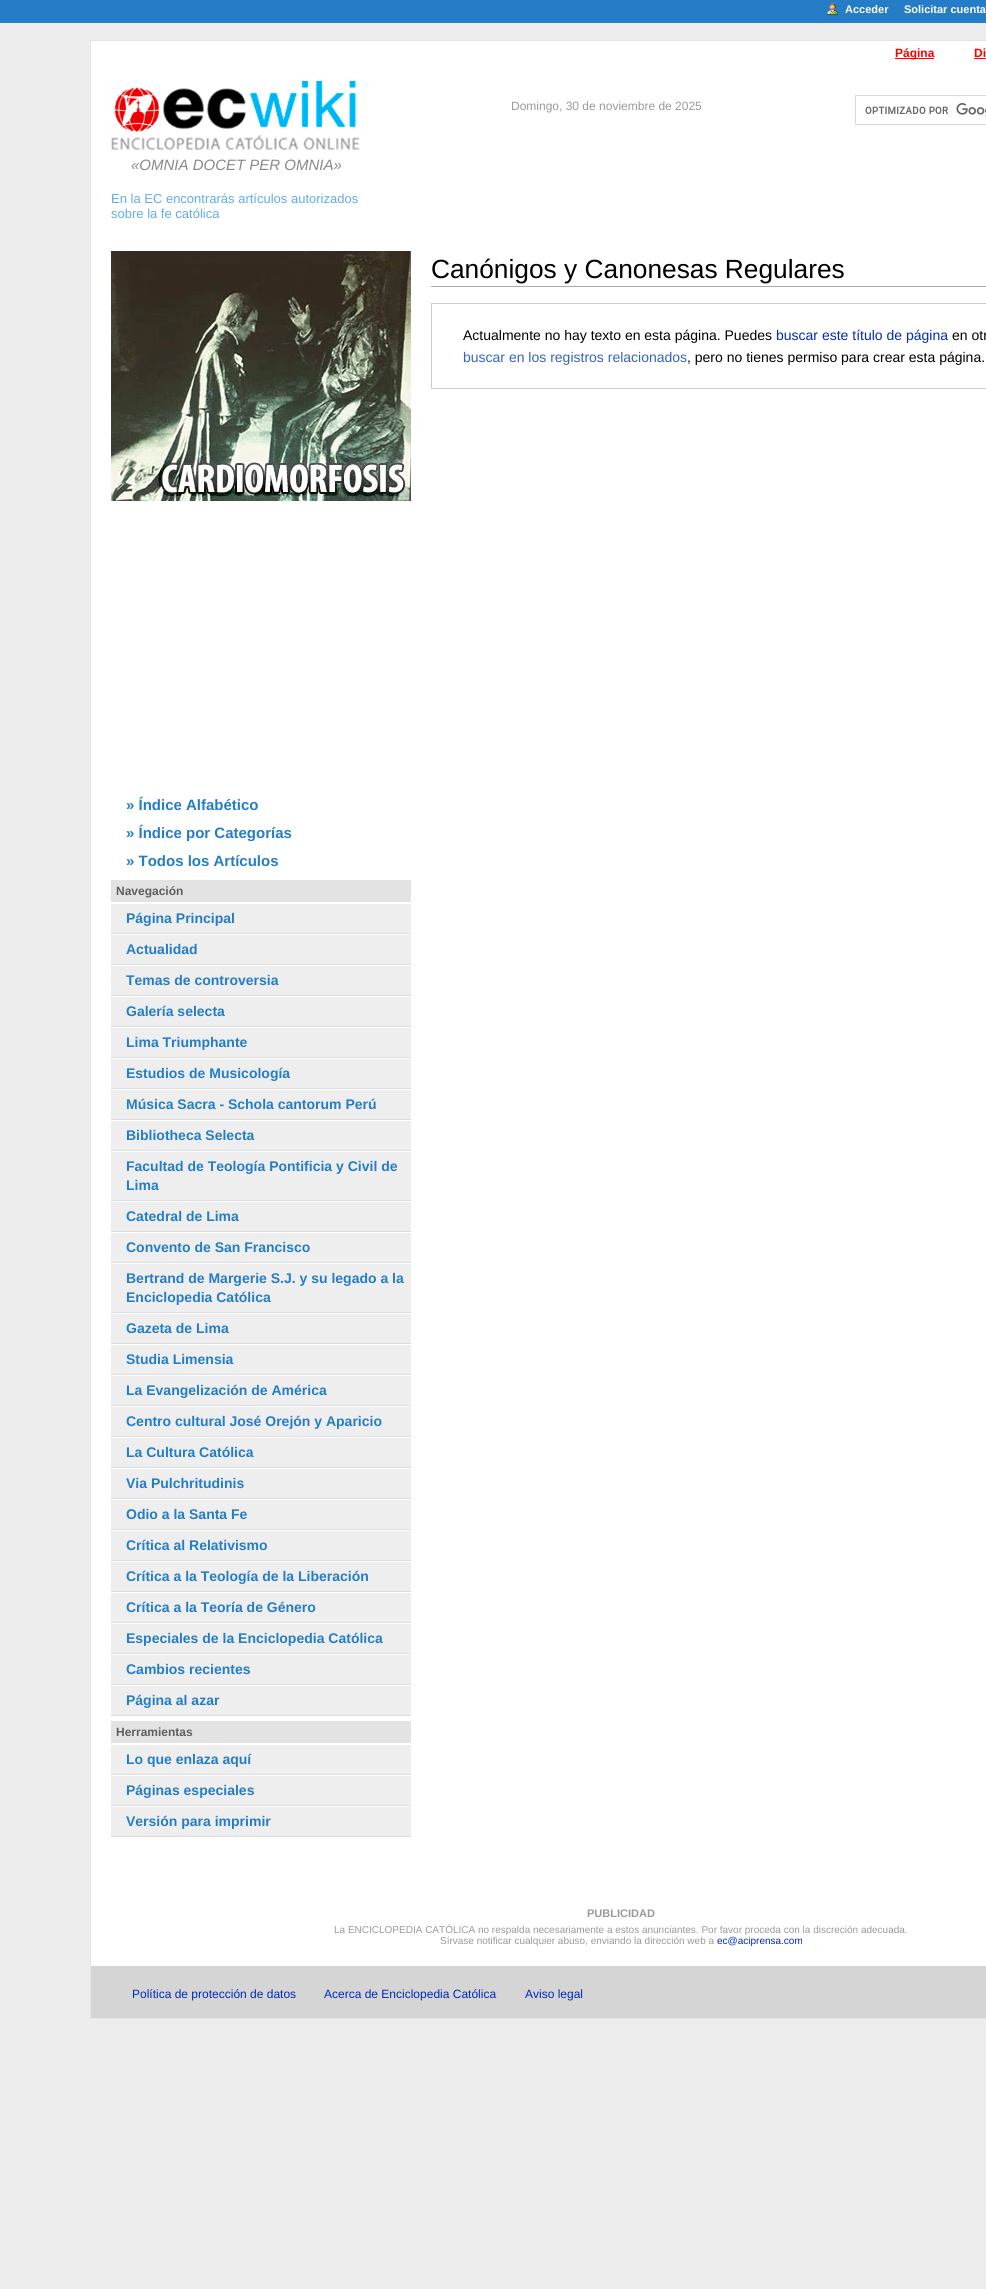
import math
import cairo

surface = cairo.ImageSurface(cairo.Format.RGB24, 986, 2289)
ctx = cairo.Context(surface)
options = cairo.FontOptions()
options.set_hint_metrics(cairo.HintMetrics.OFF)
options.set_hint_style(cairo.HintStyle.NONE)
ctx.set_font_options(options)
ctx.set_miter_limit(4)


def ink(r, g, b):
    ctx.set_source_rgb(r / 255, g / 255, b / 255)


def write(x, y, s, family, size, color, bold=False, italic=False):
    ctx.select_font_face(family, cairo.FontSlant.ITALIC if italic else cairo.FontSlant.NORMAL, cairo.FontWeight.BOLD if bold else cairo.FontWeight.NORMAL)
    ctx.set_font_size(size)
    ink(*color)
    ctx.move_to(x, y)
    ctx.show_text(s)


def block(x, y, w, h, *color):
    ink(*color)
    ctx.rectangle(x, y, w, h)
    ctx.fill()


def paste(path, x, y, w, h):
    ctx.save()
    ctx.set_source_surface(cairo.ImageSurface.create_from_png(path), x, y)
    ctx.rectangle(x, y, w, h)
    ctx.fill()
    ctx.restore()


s1 = dict(family="Liberation Sans", size=11, color=(255, 255, 255), bold=True)
s2 = dict(family="Liberation Sans", size=12, color=(255, 0, 0), bold=True)
s3 = dict(family="Liberation Sans", size=12, color=(153, 153, 153))
s4 = dict(family="Liberation Sans", size=15, color=(136, 136, 136), italic=True)
s5 = dict(family="Liberation Sans", size=13, color=(97, 172, 236))
s6 = dict(family="Liberation Sans", size=26.3, color=(0, 0, 0))
s7 = dict(family="Liberation Sans", size=14, color=(0, 0, 0))
s8 = dict(family="Liberation Sans", size=14, color=(0, 43, 184))
s9 = dict(family="Liberation Sans", size=14, color=(51, 102, 187))
s10 = dict(family="Liberation Sans", size=15, color=(36, 125, 198), bold=True)
s11 = dict(family="Liberation Sans", size=12, color=(94, 94, 94), bold=True)
s12 = dict(family="Liberation Sans", size=14, color=(36, 125, 198), bold=True)
s13 = dict(family="Liberation Sans", size=11, color=(153, 153, 153), bold=True)
s14 = dict(family="Liberation Sans", size=10, color=(153, 153, 153))
s15 = dict(family="Liberation Sans", size=10, color=(0, 43, 184))
s16 = dict(family="Liberation Sans", size=12, color=(0, 43, 184))

ink(237, 237, 237)
ctx.paint()
block(91, 41, 895, 1925, 255, 255, 255)
ctx.rectangle(90.5, 40.5, 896, 1978)
ink(228, 228, 228)
ctx.set_line_width(1)
ctx.stroke()
block(0, 0, 986, 23, 36, 125, 198)
paste("pic1.png", 827, 3, 11, 12)
write(845, 13, "Acceder", **s1)
write(904, 13, "Solicitar cuenta", **s1)
block(895, 58, 39, 1, 255, 0, 0)
write(895, 57, "Página", **s2)
block(974, 46, 12, 14, 251, 251, 251)
write(974, 57, "Di", **s2)
block(974, 58, 12, 1, 255, 0, 0)
write(511, 110, "Domingo, 30 de noviembre de 2025", **s3)
ctx.rectangle(855.5, 95.5, 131, 29)
ink(217, 217, 217)
ctx.stroke()
paste("pic2.png", 865, 103, 121, 14)
paste("pic3.png", 111, 81, 249, 69)
write(131, 170, "«OMNIA DOCET PER OMNIA»", **s4)
write(111, 203, "En la EC encontrarás artículos autorizados", **s5)
write(111, 218, "sobre la fe católica", **s5)
block(431, 286, 555, 1, 170, 170, 170)
write(431, 278, "Canónigos y Canonesas Regulares", **s6)
ctx.rectangle(431.5, 303.5, 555, 85)
ink(204, 204, 204)
ctx.stroke()
write(463, 340, "Actualmente no hay texto en esta página. Puedes", **s7)
write(776, 340, "buscar este título de página", **s8)
write(952, 340, "en otr", **s7)
write(463, 362, "buscar en los registros relacionados", **s9)
write(687, 362, ", pero no tienes permiso para crear esta página.", **s7)
paste("pic4.png", 111, 251, 300, 250)
write(126, 810, "» Índice Alfabético", **s10)
write(126, 838, "» Índice por Categorías", **s10)
write(126, 866, "» Todos los Artículos", **s10)
block(111, 880, 300, 22, 227, 227, 227)
write(116, 895, "Navegación", **s11)
block(111, 904, 300, 29, 238, 238, 238)
block(111, 933, 300, 1, 220, 220, 220)
write(126, 923, "Página Principal", **s12)
block(111, 935, 300, 29, 238, 238, 238)
block(111, 964, 300, 1, 220, 220, 220)
write(126, 954, "Actualidad", **s12)
block(111, 966, 300, 29, 238, 238, 238)
block(111, 995, 300, 1, 220, 220, 220)
write(126, 985, "Temas de controversia", **s12)
block(111, 997, 300, 29, 238, 238, 238)
block(111, 1026, 300, 1, 220, 220, 220)
write(126, 1016, "Galería selecta", **s12)
block(111, 1028, 300, 29, 238, 238, 238)
block(111, 1057, 300, 1, 220, 220, 220)
write(126, 1047, "Lima Triumphante", **s12)
block(111, 1059, 300, 29, 238, 238, 238)
block(111, 1088, 300, 1, 220, 220, 220)
write(126, 1078, "Estudios de Musicología", **s12)
block(111, 1090, 300, 29, 238, 238, 238)
block(111, 1119, 300, 1, 220, 220, 220)
write(126, 1109, "Música Sacra - Schola cantorum Perú", **s12)
block(111, 1121, 300, 29, 238, 238, 238)
block(111, 1150, 300, 1, 220, 220, 220)
write(126, 1140, "Bibliotheca Selecta", **s12)
block(111, 1152, 300, 48, 238, 238, 238)
block(111, 1200, 300, 1, 220, 220, 220)
write(126, 1171, "Facultad de Teología Pontificia y Civil de", **s12)
write(126, 1190, "Lima", **s12)
block(111, 1202, 300, 29, 238, 238, 238)
block(111, 1231, 300, 1, 220, 220, 220)
write(126, 1221, "Catedral de Lima", **s12)
block(111, 1233, 300, 29, 238, 238, 238)
block(111, 1262, 300, 1, 220, 220, 220)
write(126, 1252, "Convento de San Francisco", **s12)
block(111, 1264, 300, 48, 238, 238, 238)
block(111, 1312, 300, 1, 220, 220, 220)
write(126, 1283, "Bertrand de Margerie S.J. y su legado a la", **s12)
write(126, 1302, "Enciclopedia Católica", **s12)
block(111, 1314, 300, 29, 238, 238, 238)
block(111, 1343, 300, 1, 220, 220, 220)
write(126, 1333, "Gazeta de Lima", **s12)
block(111, 1345, 300, 29, 238, 238, 238)
block(111, 1374, 300, 1, 220, 220, 220)
write(126, 1364, "Studia Limensia", **s12)
block(111, 1376, 300, 29, 238, 238, 238)
block(111, 1405, 300, 1, 220, 220, 220)
write(126, 1395, "La Evangelización de América", **s12)
block(111, 1407, 300, 29, 238, 238, 238)
block(111, 1436, 300, 1, 220, 220, 220)
write(126, 1426, "Centro cultural José Orejón y Aparicio", **s12)
block(111, 1438, 300, 29, 238, 238, 238)
block(111, 1467, 300, 1, 220, 220, 220)
write(126, 1457, "La Cultura Católica", **s12)
block(111, 1469, 300, 29, 238, 238, 238)
block(111, 1498, 300, 1, 220, 220, 220)
write(126, 1488, "Via Pulchritudinis", **s12)
block(111, 1500, 300, 29, 238, 238, 238)
block(111, 1529, 300, 1, 220, 220, 220)
write(126, 1519, "Odio a la Santa Fe", **s12)
block(111, 1531, 300, 29, 238, 238, 238)
block(111, 1560, 300, 1, 220, 220, 220)
write(126, 1550, "Crítica al Relativismo", **s12)
block(111, 1562, 300, 29, 238, 238, 238)
block(111, 1591, 300, 1, 220, 220, 220)
write(126, 1581, "Crítica a la Teología de la Liberación", **s12)
block(111, 1593, 300, 29, 238, 238, 238)
block(111, 1622, 300, 1, 220, 220, 220)
write(126, 1612, "Crítica a la Teoría de Género", **s12)
block(111, 1624, 300, 29, 238, 238, 238)
block(111, 1653, 300, 1, 220, 220, 220)
write(126, 1643, "Especiales de la Enciclopedia Católica", **s12)
block(111, 1655, 300, 29, 238, 238, 238)
block(111, 1684, 300, 1, 220, 220, 220)
write(126, 1674, "Cambios recientes", **s12)
block(111, 1686, 300, 29, 238, 238, 238)
block(111, 1715, 300, 1, 220, 220, 220)
write(126, 1705, "Página al azar", **s12)
block(111, 1721, 300, 22, 227, 227, 227)
write(116, 1736, "Herramientas", **s11)
block(111, 1745, 300, 29, 238, 238, 238)
block(111, 1774, 300, 1, 220, 220, 220)
write(126, 1764, "Lo que enlaza aquí", **s12)
block(111, 1776, 300, 29, 238, 238, 238)
block(111, 1805, 300, 1, 220, 220, 220)
write(126, 1795, "Páginas especiales", **s12)
block(111, 1807, 300, 29, 238, 238, 238)
block(111, 1836, 300, 1, 220, 220, 220)
write(126, 1826, "Versión para imprimir", **s12)
write(587, 1917, "PUBLICIDAD", **s13)
write(334, 1933, "La ENCICLOPEDIA CATÓLICA no respalda necesariamente a estos anunciantes. Por favor proceda con la discreción adecuada.", **s14)
write(440, 1944, "Sírvase notificar cualquier abuso, enviando la dirección web a", **s14)
write(717, 1944, "ec@aciprensa.com", **s15)
block(91, 1966, 895, 52, 213, 213, 213)
write(132, 1998, "Política de protección de datos", **s16)
write(324, 1998, "Acerca de Enciclopedia Católica", **s16)
write(525, 1998, "Aviso legal", **s16)
surface.write_to_png("screenshot.png")
